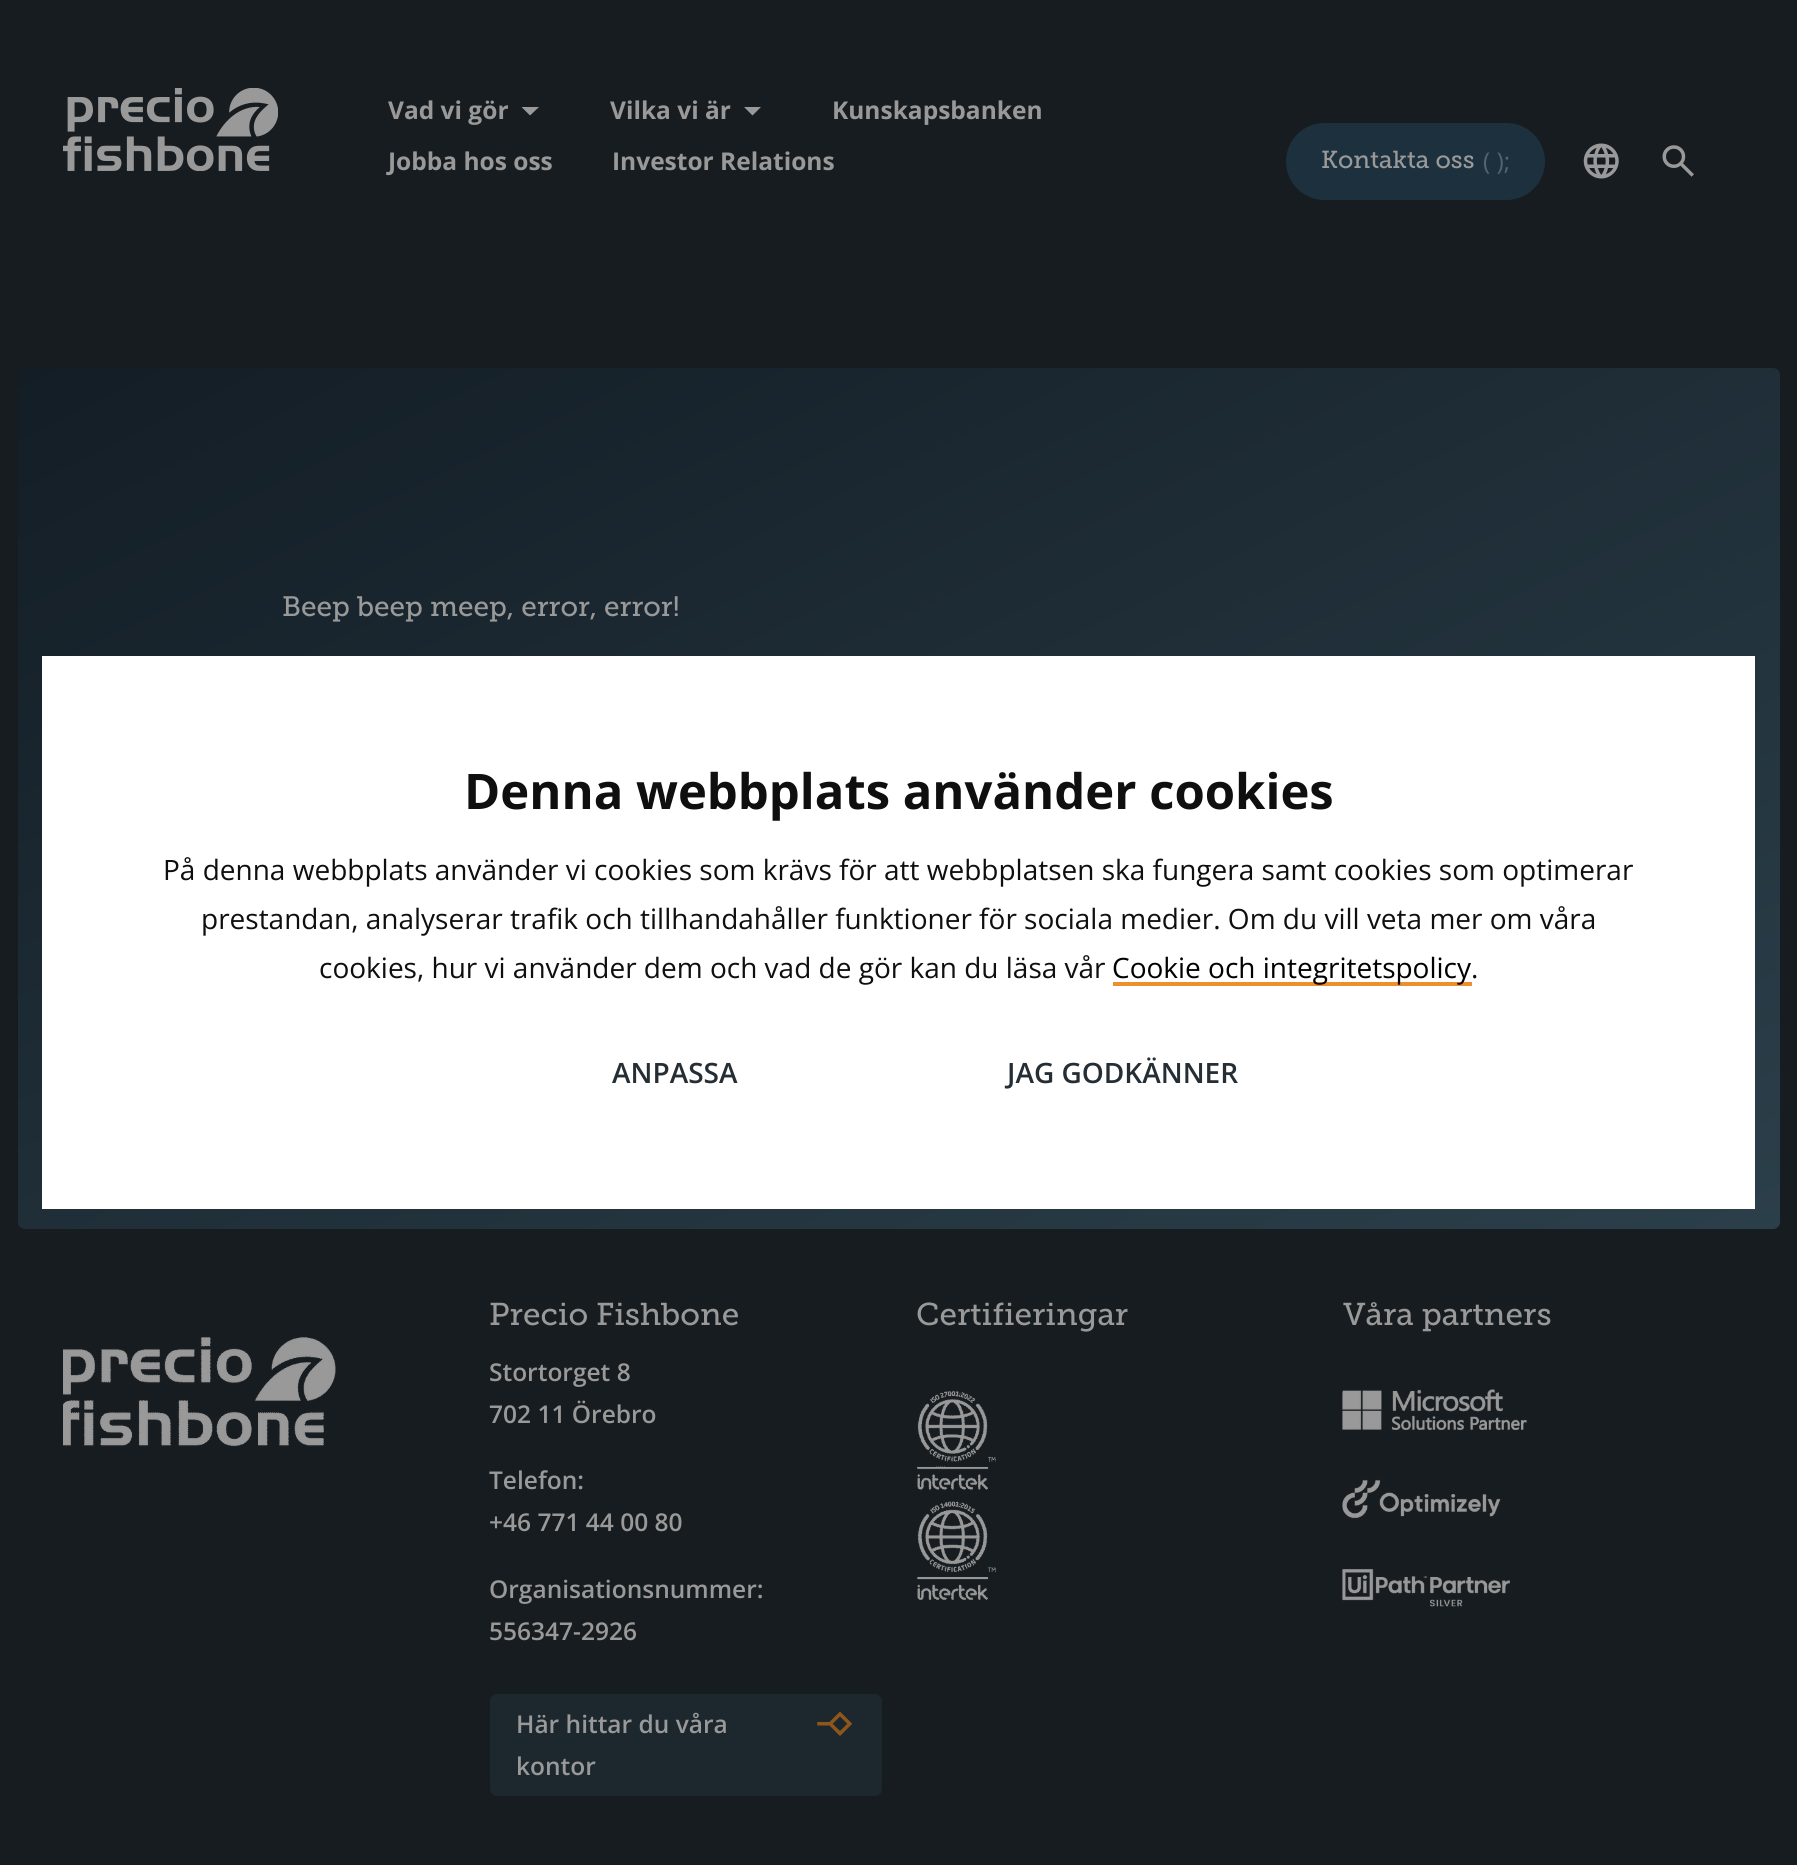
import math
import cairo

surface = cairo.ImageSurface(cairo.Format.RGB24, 1797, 1865)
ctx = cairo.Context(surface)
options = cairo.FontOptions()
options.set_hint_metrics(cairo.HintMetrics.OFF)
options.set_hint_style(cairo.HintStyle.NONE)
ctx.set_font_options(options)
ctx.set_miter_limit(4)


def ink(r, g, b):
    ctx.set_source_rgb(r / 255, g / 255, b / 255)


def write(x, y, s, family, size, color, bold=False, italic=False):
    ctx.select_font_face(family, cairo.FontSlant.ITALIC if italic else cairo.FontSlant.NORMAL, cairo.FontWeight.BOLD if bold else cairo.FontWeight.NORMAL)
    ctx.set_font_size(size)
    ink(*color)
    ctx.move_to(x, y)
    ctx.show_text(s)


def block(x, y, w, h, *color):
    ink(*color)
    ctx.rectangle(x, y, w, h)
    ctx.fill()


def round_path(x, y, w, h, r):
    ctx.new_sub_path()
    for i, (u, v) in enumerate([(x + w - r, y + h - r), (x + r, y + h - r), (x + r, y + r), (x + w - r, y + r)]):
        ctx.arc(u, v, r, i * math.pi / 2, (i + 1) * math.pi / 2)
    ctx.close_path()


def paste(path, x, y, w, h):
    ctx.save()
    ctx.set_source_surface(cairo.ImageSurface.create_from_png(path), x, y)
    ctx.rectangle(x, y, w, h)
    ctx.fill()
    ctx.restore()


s1 = dict(family="Open Sans", size=24.5, color=(153, 153, 153), bold=True)
s2 = dict(family="Museo Slab", size=24.5, color=(153, 153, 153))
s3 = dict(family="Open Sans", size=24.5, color=(82, 100, 109))
s4 = dict(family="Museo Slab", size=28, color=(153, 153, 153))
s5 = dict(family="Museo Slab", size=31.5, color=(153, 153, 153))
s6 = dict(family="Open Sans SemiBold", size=24.5, color=(153, 153, 153))
s7 = dict(family="Open Sans", size=49, color=(15, 15, 15), bold=True)
s8 = dict(family="Open Sans", size=28, color=(15, 15, 15))
s9 = dict(family="Open Sans", size=28, color=(0, 0, 0))
s10 = dict(family="Open Sans SemiBold", size=28, color=(36, 46, 52))

ink(22, 28, 31)
ctx.paint()
paste("pic1.png", 63, 88, 215, 83)
write(388, 119, "Vad vi gör", **s1)
ctx.new_path()
ctx.move_to(530, 115.5)
ctx.line_to(521.5, 107)
ctx.line_to(539, 107)
ctx.close_path()
ctx.fill()
write(610, 119, "Vilka vi är", **s1)
ctx.new_path()
ctx.move_to(752.5, 115.5)
ctx.line_to(744, 107)
ctx.line_to(761, 107)
ctx.close_path()
ctx.fill()
write(832, 119, "Kunskapsbanken", **s1)
write(388, 170, "Jobba hos oss", **s1)
write(612, 170, "Investor Relations", **s1)
ink(28, 49, 61)
round_path(1286, 123, 259, 77, 38.5)
ctx.fill()
write(1321, 168, "Kontakta oss", **s2)
write(1483, 170, "( );", **s3)
paste("pic2.png", 1583, 143, 36, 36)
paste("pic3.png", 1662, 145, 32, 32)
gradient = cairo.LinearGradient(1238, 1493, 559, 103)
gradient.add_color_stop_rgba(0, 0.169, 0.247, 0.29, 1)
gradient.add_color_stop_rgba(1, 0.075, 0.114, 0.145, 1)
ctx.set_source(gradient)
round_path(18, 368, 1762, 861, 7)
ctx.fill()
write(282, 616, "Beep beep meep, error, error!", **s4)
write(489, 1325, "Precio Fishbone", **s5)
write(489, 1381, "Stortorget 8", **s6)
write(489, 1423, "702 11 Örebro", **s6)
write(489, 1489, "Telefon:", **s6)
write(489, 1531, "+46 771 44 00 80", **s6)
write(489, 1598, "Organisationsnummer:", **s6)
write(489, 1640, "556347-2926", **s6)
ink(29, 40, 46)
round_path(490, 1694, 392, 102, 7)
ctx.fill()
write(516, 1733, "Här hittar du våra", **s6)
paste("pic4.png", 817, 1711, 36, 25)
write(516, 1775, "kontor", **s6)
write(916, 1325, "Certifieringar", **s5)
paste("pic5.png", 917, 1391, 79, 209)
write(1343, 1325, "Våra partners", **s5)
paste("pic6.png", 1342, 1389, 185, 218)
paste("pic7.png", 63, 1337, 273, 110)
block(42, 656, 1713, 553, 255, 255, 255)
write(464, 809, "Denna webbplats använder cookies", **s7)
write(163, 880, "På denna webbplats använder vi cookies som krävs för att webbplatsen ska fungera samt cookies som optimerar", **s8)
write(201, 929, "prestandan, analyserar trafik och tillhandahåller funktioner för sociala medier. Om du vill veta mer om våra", **s8)
write(319, 978, "cookies, hur vi använder dem och vad de gör kan du läsa vår", **s8)
block(1113, 982, 359, 4, 238, 143, 47)
write(1112, 978, "Cookie och integritetspolicy", **s9)
write(1471, 978, ".", **s8)
write(612, 1083, "ANPASSA", **s10)
write(1007, 1083, "JAG GODKÄNNER", **s10)
surface.write_to_png("screenshot.png")
